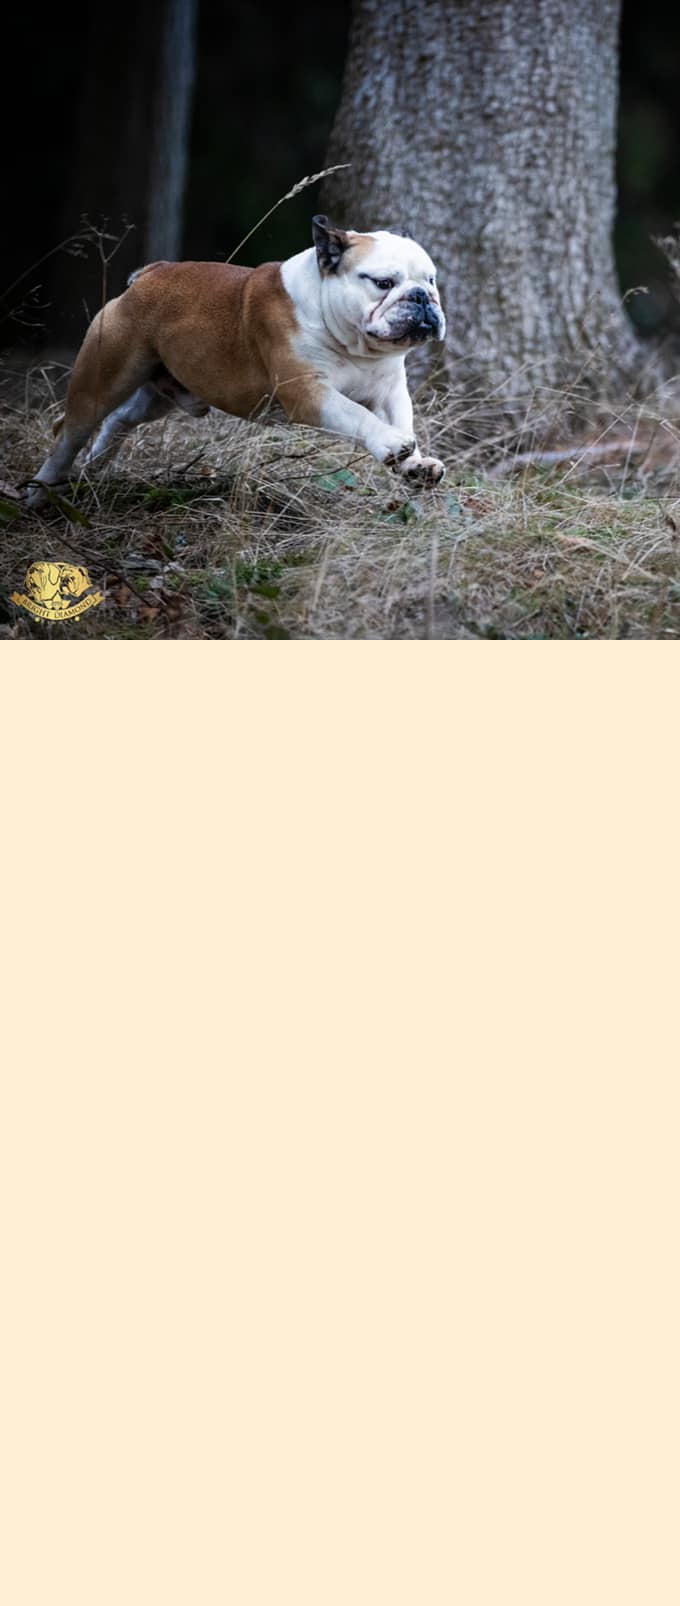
import math
import cairo

surface = cairo.ImageSurface(cairo.Format.RGB24, 680, 1606)
ctx = cairo.Context(surface)
options = cairo.FontOptions()
options.set_hint_metrics(cairo.HintMetrics.OFF)
options.set_hint_style(cairo.HintStyle.NONE)
ctx.set_font_options(options)
ctx.set_miter_limit(4)


def ink(r, g, b):
    ctx.set_source_rgb(r / 255, g / 255, b / 255)


def paste(path, x, y, w, h):
    ctx.save()
    ctx.set_source_surface(cairo.ImageSurface.create_from_png(path), x, y)
    ctx.rectangle(x, y, w, h)
    ctx.fill()
    ctx.restore()


ink(255, 239, 213)
ctx.paint()
paste("pic1.png", 0, 0, 680, 640)
surface.write_to_png("screenshot.png")
